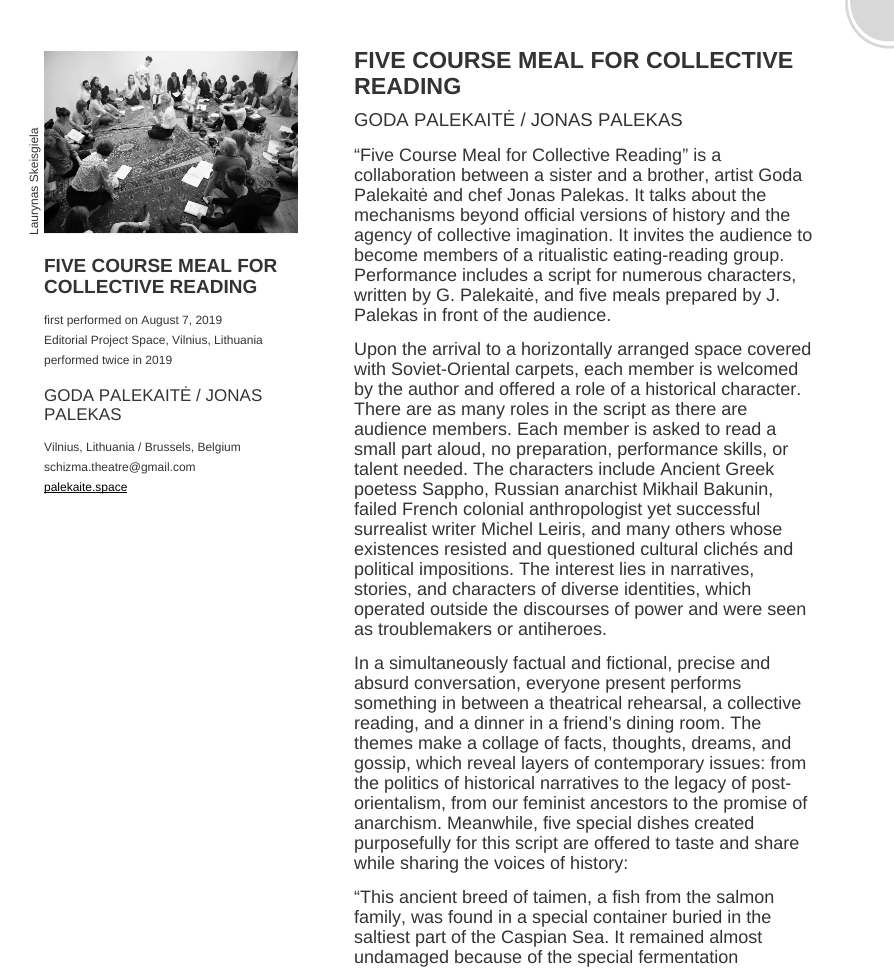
import math
import cairo

surface = cairo.ImageSurface(cairo.Format.RGB24, 894, 970)
ctx = cairo.Context(surface)
options = cairo.FontOptions()
options.set_hint_metrics(cairo.HintMetrics.OFF)
options.set_hint_style(cairo.HintStyle.NONE)
ctx.set_font_options(options)
ctx.set_miter_limit(4)


def ink(r, g, b):
    ctx.set_source_rgb(r / 255, g / 255, b / 255)


def write(x, y, s, family, size, color, bold=False, italic=False):
    ctx.select_font_face(family, cairo.FontSlant.ITALIC if italic else cairo.FontSlant.NORMAL, cairo.FontWeight.BOLD if bold else cairo.FontWeight.NORMAL)
    ctx.set_font_size(size)
    ink(*color)
    ctx.move_to(x, y)
    ctx.show_text(s)


def block(x, y, w, h, *color):
    ink(*color)
    ctx.rectangle(x, y, w, h)
    ctx.fill()


def paste(path, x, y, w, h):
    ctx.save()
    ctx.set_source_surface(cairo.ImageSurface.create_from_png(path), x, y)
    ctx.rectangle(x, y, w, h)
    ctx.fill()
    ctx.restore()


s1 = dict(family="Liberation Sans", size=12, color=(51, 51, 51))
s2 = dict(family="Liberation Sans", size=19, color=(51, 51, 51), bold=True)
s3 = dict(family="Liberation Sans", size=17, color=(51, 51, 51))
s4 = dict(family="Liberation Sans", size=12, color=(0, 0, 0))
s5 = dict(family="Liberation Sans", size=23.25, color=(51, 51, 51), bold=True)
s6 = dict(family="Liberation Sans", size=18.6, color=(51, 51, 51))
s7 = dict(family="Liberation Sans", size=18, color=(51, 51, 51))

ink(255, 255, 255)
ctx.paint()
paste("pic1.png", 845, 0, 49, 49)
ctx.save()
ctx.translate(38, 235)
ctx.rotate(-90 * math.pi / 180)
write(0, 0, "Laurynas Skeisgiela", **s1)
ctx.restore()
paste("pic2.png", 44, 51, 254, 183)
write(44, 272, "FIVE COURSE MEAL FOR", **s2)
write(44, 293, "COLLECTIVE READING", **s2)
write(44, 324, "first performed on August 7, 2019", **s1)
write(44, 344, "Editorial Project Space, Vilnius, Lithuania", **s1)
write(44, 364, "performed twice in 2019", **s1)
write(44, 401, "GODA PALEKAITĖ / JONAS", **s3)
write(44, 420, "PALEKAS", **s3)
write(44, 451, "Vilnius, Lithuania / Brussels, Belgium", **s1)
write(44, 471, "schizma.theatre@gmail.com", **s1)
block(44, 492, 83, 1, 0, 0, 0)
write(44, 491, "palekaite.space", **s4)
write(354, 68, "FIVE COURSE MEAL FOR COLLECTIVE", **s5)
write(354, 94, "READING", **s5)
write(354, 126, "GODA PALEKAITĖ / JONAS PALEKAS", **s6)
write(354, 161, "“Five Course Meal for Collective Reading” is a", **s7)
write(354, 181, "collaboration between a sister and a brother, artist Goda", **s7)
write(354, 201, "Palekaitė and chef Jonas Palekas. It talks about the", **s7)
write(354, 221, "mechanisms beyond official versions of history and the", **s7)
write(354, 241, "agency of collective imagination. It invites the audience to", **s7)
write(354, 261, "become members of a ritualistic eating-reading group.", **s7)
write(354, 281, "Performance includes a script for numerous characters,", **s7)
write(354, 301, "written by G. Palekaitė, and five meals prepared by J.", **s7)
write(354, 321, "Palekas in front of the audience.", **s7)
write(354, 355, "Upon the arrival to a horizontally arranged space covered", **s7)
write(354, 375, "with Soviet-Oriental carpets, each member is welcomed", **s7)
write(354, 395, "by the author and offered a role of a historical character.", **s7)
write(354, 415, "There are as many roles in the script as there are", **s7)
write(354, 435, "audience members. Each member is asked to read a", **s7)
write(354, 455, "small part aloud, no preparation, performance skills, or", **s7)
write(354, 475, "talent needed. The characters include Ancient Greek", **s7)
write(354, 495, "poetess Sappho, Russian anarchist Mikhail Bakunin,", **s7)
write(354, 515, "failed French colonial anthropologist yet successful", **s7)
write(354, 535, "surrealist writer Michel Leiris, and many others whose", **s7)
write(354, 555, "existences resisted and questioned cultural clichés and", **s7)
write(354, 575, "political impositions. The interest lies in narratives,", **s7)
write(354, 595, "stories, and characters of diverse identities, which", **s7)
write(354, 615, "operated outside the discourses of power and were seen", **s7)
write(354, 635, "as troublemakers or antiheroes.", **s7)
write(354, 669, "In a simultaneously factual and fictional, precise and", **s7)
write(354, 689, "absurd conversation, everyone present performs", **s7)
write(354, 709, "something in between a theatrical rehearsal, a collective", **s7)
write(354, 729, "reading, and a dinner in a friend’s dining room. The", **s7)
write(354, 749, "themes make a collage of facts, thoughts, dreams, and", **s7)
write(354, 769, "gossip, which reveal layers of contemporary issues: from", **s7)
write(354, 789, "the politics of historical narratives to the legacy of post-", **s7)
write(354, 809, "orientalism, from our feminist ancestors to the promise of", **s7)
write(354, 829, "anarchism. Meanwhile, five special dishes created", **s7)
write(354, 849, "purposefully for this script are offered to taste and share", **s7)
write(354, 869, "while sharing the voices of history:", **s7)
write(354, 903, "“This ancient breed of taimen, a fish from the salmon", **s7)
write(354, 923, "family, was found in a special container buried in the", **s7)
write(354, 943, "saltiest part of the Caspian Sea. It remained almost", **s7)
write(354, 963, "undamaged because of the special fermentation", **s7)
surface.write_to_png("screenshot.png")
